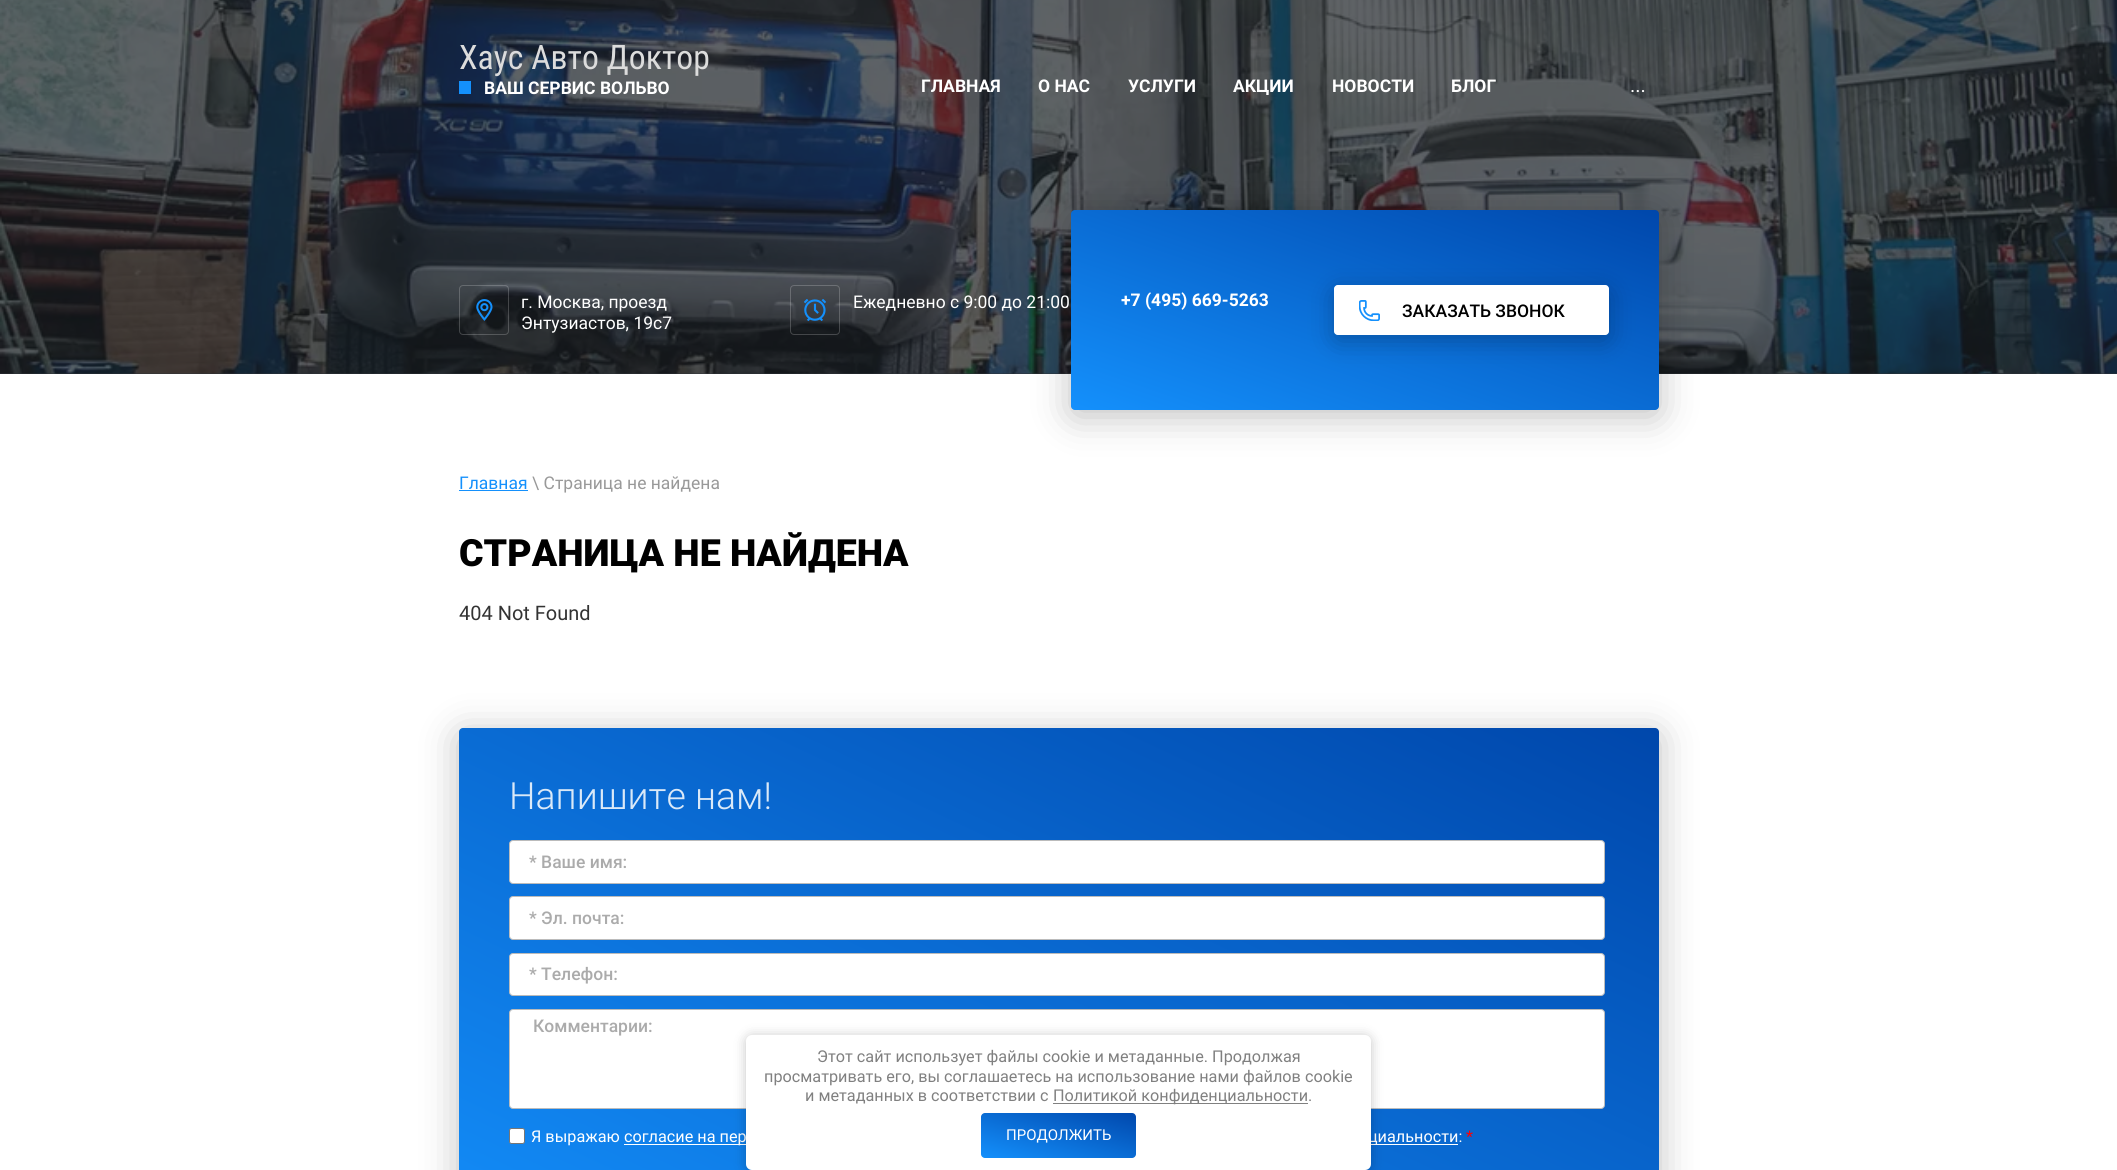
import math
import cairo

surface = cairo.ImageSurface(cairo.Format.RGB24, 2117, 1170)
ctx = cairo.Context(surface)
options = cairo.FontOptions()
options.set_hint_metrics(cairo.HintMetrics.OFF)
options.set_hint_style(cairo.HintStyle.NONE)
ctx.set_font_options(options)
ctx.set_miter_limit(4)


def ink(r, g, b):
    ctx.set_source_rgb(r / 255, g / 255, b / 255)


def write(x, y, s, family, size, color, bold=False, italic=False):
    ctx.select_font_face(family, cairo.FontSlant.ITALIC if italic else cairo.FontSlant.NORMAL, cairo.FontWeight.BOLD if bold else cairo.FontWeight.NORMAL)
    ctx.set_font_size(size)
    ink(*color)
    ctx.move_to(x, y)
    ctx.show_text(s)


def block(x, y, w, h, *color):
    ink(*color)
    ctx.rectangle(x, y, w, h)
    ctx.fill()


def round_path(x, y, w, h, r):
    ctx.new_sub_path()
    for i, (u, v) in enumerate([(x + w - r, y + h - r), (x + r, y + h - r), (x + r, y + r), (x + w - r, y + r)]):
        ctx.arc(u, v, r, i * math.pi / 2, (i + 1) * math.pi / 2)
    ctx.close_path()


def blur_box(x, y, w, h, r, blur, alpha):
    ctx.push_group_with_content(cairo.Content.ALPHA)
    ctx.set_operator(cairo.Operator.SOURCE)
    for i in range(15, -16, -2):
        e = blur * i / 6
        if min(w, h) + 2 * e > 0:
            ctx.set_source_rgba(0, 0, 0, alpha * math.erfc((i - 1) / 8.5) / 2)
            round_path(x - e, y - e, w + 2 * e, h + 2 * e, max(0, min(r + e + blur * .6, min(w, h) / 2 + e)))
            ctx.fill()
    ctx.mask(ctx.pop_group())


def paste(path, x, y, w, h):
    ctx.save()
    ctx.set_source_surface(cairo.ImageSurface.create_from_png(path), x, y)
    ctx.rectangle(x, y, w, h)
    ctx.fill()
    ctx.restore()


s1 = dict(family="Roboto Condensed", size=33.75, color=(220, 220, 220))
s2 = dict(family="Roboto", size=17.5, color=(255, 255, 255), bold=True)
s3 = dict(family="Roboto", size=20, color=(255, 255, 255))
s4 = dict(family="Roboto", size=17.5, color=(255, 255, 255))
s5 = dict(family="Roboto Medium", size=17.5, color=(0, 0, 0))
s6 = dict(family="Roboto", size=17.5, color=(20, 144, 252))
s7 = dict(family="Roboto", size=17.5, color=(153, 153, 153))
s8 = dict(family="Roboto Black", size=37.5, color=(0, 0, 0))
s9 = dict(family="Roboto", size=20, color=(51, 51, 51))
s10 = dict(family="Roboto Light", size=37.5, color=(218, 233, 248))
s11 = dict(family="Roboto Medium", size=17.5, color=(171, 171, 171))
s12 = dict(family="Roboto", size=16.25, color=(255, 255, 255))
s13 = dict(family="Roboto", size=16.25, color=(255, 0, 0))
s14 = dict(family="Roboto", size=16.25, color=(128, 128, 128))
s15 = dict(family="Roboto", size=15, color=(255, 255, 255))

ink(255, 255, 255)
ctx.paint()
block(0, 373, 2117, 1, 47, 51, 56)
paste("pic1.png", 0, 0, 2117, 374)
write(459, 69, "Хаус Авто Доктор", **s1)
block(459, 81, 12, 13, 20, 144, 252)
write(484, 94, "ВАШ СЕРВИС ВОЛЬВО", **s2)
write(921, 92, "ГЛАВНАЯ", **s2)
write(1038, 92, "О НАС", **s2)
write(1128, 92, "УСЛУГИ", **s2)
write(1233, 92, "АКЦИИ", **s2)
write(1332, 92, "НОВОСТИ", **s2)
write(1451, 92, "БЛОГ", **s2)
write(1630, 92, "...", **s3)
paste("pic2.png", 476, 299, 17, 22)
round_path(459.5, 285.5, 49, 49, 3.5)
ctx.set_source_rgba(1, 1, 1, 0.2)
ctx.set_line_width(1)
ctx.stroke()
write(521, 308, "г. Москва, проезд", **s4)
write(521, 329, "Энтузиастов, 19с7", **s4)
paste("pic3.png", 804, 299, 22, 22)
round_path(790.5, 285.5, 49, 49, 3.5)
ctx.set_source_rgba(1, 1, 1, 0.2)
ctx.stroke()
ink(0, 0, 0)
blur_box(1071, 216, 588, 200, 4, 19, 0.25)
write(853, 308, "Ежедневно с 9:00 до 21:00", **s4)
gradient = cairo.LinearGradient(1426, 131, 1304, 489)
gradient.add_color_stop_rgba(0, 0, 0.278, 0.671, 1)
gradient.add_color_stop_rgba(1, 0.078, 0.565, 0.988, 1)
ctx.set_source(gradient)
round_path(1071, 210, 588, 200, 4)
ctx.fill()
write(1121, 306, "+7 (495) 669-5263", **s2)
ink(0, 0, 0)
blur_box(1334, 291, 275, 50, 4, 12.5, 0.25)
ink(255, 255, 255)
round_path(1334, 285, 275, 50, 4)
ctx.fill()
paste("pic4.png", 1359, 300, 21, 21)
round_path(1334.5, 285.5, 274, 49, 3.5)
ctx.set_source_rgba(1, 1, 1, 0.4)
ctx.stroke()
write(1402, 317, "ЗАКАЗАТЬ ЗВОНОК", **s5)
write(459, 489, "Главная", **s6)
block(459, 490, 69, 1, 20, 144, 252)
write(532, 489, "\\ Страница не найдена", **s7)
write(459, 566, "СТРАНИЦА НЕ НАЙДЕНА", **s8)
write(459, 620, "404 Not Found", **s9)
ink(0, 0, 0)
blur_box(459, 734, 1200, 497, 4, 19, 0.25)
gradient = cairo.LinearGradient(1275, 548, 843, 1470)
gradient.add_color_stop_rgba(0, 0, 0.278, 0.671, 1)
gradient.add_color_stop_rgba(1, 0.078, 0.565, 0.988, 1)
ctx.set_source(gradient)
round_path(459, 728, 1200, 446, 4)
ctx.fill()
write(509, 809, "Напишите нам!", **s10)
ink(255, 255, 255)
round_path(509.5, 840.5, 1095, 43, 3.5)
ctx.fill_preserve()
ink(187, 187, 187)
ctx.stroke()
write(529, 868, "* Ваше имя:", **s11)
ink(255, 255, 255)
round_path(509.5, 896.5, 1095, 43, 3.5)
ctx.fill_preserve()
ink(187, 187, 187)
ctx.stroke()
write(529, 924, "* Эл. почта:", **s11)
ink(255, 255, 255)
round_path(509.5, 953.5, 1095, 42, 3.5)
ctx.fill_preserve()
ink(187, 187, 187)
ctx.stroke()
write(529, 980, "* Телефон:", **s11)
ink(255, 255, 255)
round_path(509.5, 1009.5, 1095, 99, 3.5)
ctx.fill_preserve()
ink(187, 187, 187)
ctx.stroke()
write(533, 1032, "Комментарии:", **s11)
ink(255, 255, 255)
round_path(509.5, 1128.5, 15, 15, 2)
ctx.fill_preserve()
ink(118, 118, 118)
ctx.stroke()
write(531, 1142, "Я выражаю", **s12)
block(624, 1144, 122, 1, 255, 255, 255)
write(624, 1142, "согласие на пер", **s12)
block(1371, 1144, 87, 1, 255, 255, 255)
write(1368, 1142, "циальности:", **s12)
write(1466, 1142, "*", **s13)
ink(0, 0, 0)
blur_box(746, 1036, 625, 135, 6, 6, 0.23)
ink(255, 255, 255)
round_path(746, 1035, 625, 135, 6)
ctx.fill()
write(817, 1062, "Этот сайт использует файлы cookie и метаданные. Продолжая", **s14)
write(764, 1082, "просматривать его, вы соглашаетесь на использование нами файлов cookie", **s14)
write(805, 1101, "и метаданных в соответствии с", **s14)
block(1053, 1103, 255, 1, 128, 128, 128)
write(1053, 1101, "Политикой конфиденциальности.", **s14)
gradient = cairo.LinearGradient(1071, 1093, 1047, 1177)
gradient.add_color_stop_rgba(0, 0, 0.278, 0.671, 1)
gradient.add_color_stop_rgba(1, 0.078, 0.565, 0.988, 1)
ctx.set_source(gradient)
round_path(981, 1113, 155, 45, 4)
ctx.fill()
write(1006, 1140, "ПРОДОЛЖИТЬ", **s15)
surface.write_to_png("screenshot.png")
